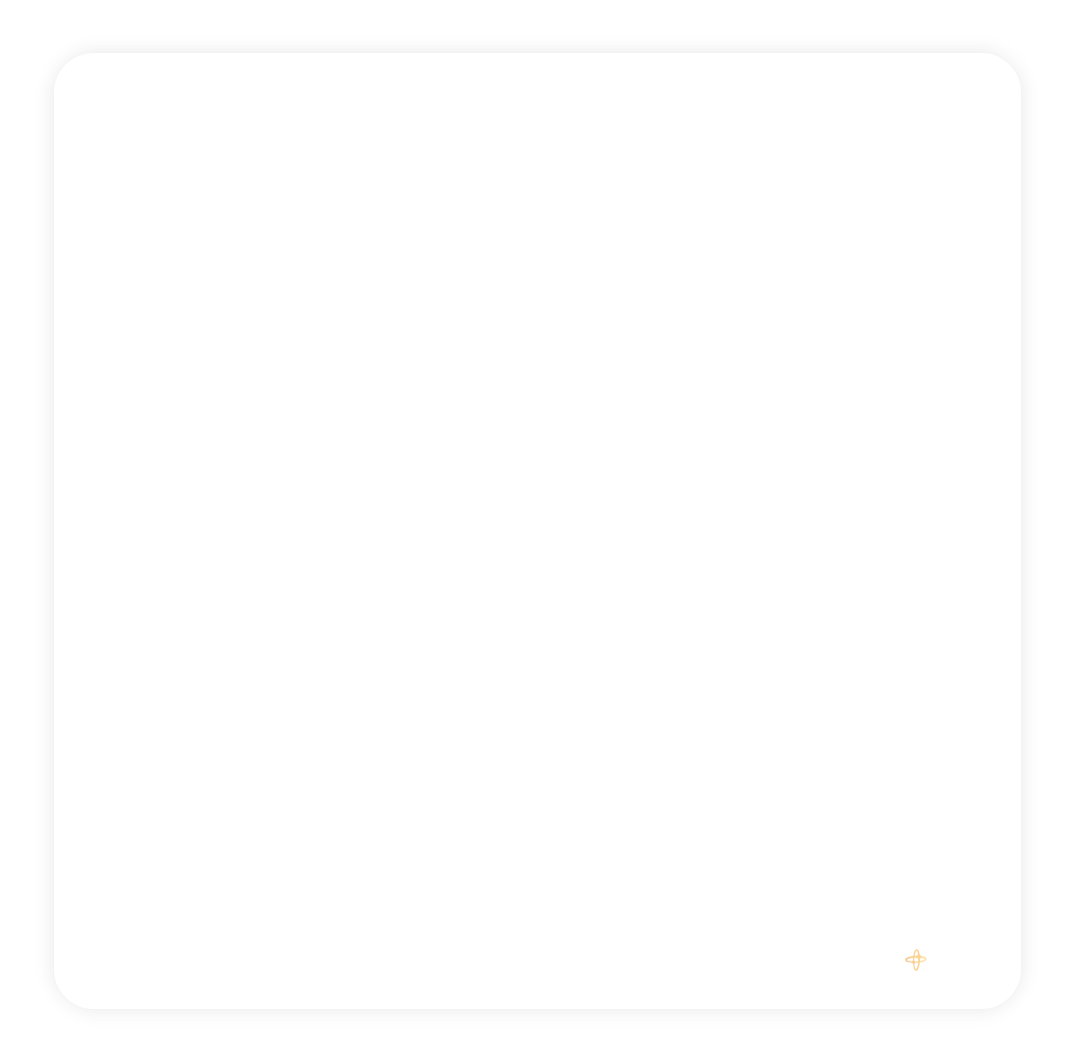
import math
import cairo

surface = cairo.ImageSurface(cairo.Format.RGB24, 1075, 1062)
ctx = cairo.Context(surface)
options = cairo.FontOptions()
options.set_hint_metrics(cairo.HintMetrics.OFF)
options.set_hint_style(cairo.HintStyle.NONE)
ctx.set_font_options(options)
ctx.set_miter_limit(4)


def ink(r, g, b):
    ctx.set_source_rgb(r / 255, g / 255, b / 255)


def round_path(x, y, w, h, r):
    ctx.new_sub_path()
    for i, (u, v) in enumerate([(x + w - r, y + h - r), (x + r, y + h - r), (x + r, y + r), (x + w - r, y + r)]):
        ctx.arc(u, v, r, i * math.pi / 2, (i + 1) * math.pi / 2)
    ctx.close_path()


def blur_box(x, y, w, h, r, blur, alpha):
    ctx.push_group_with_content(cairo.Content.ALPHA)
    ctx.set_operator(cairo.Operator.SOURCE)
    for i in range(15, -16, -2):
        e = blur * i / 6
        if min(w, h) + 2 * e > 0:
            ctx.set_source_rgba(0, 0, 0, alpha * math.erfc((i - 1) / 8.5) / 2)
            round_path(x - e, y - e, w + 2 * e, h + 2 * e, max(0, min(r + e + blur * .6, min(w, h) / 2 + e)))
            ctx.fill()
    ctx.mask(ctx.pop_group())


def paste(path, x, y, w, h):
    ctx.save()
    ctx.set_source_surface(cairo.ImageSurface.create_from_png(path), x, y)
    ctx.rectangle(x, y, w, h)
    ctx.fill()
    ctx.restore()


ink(255, 255, 255)
ctx.paint()
ctx.save()
ctx.set_fill_rule(cairo.FillRule.EVEN_ODD)
ctx.new_path()
ctx.move_to(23, 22)
ctx.line_to(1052, 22)
ctx.line_to(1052, 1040)
ctx.line_to(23, 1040)
ctx.close_path()
ctx.move_to(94, 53)
ctx.line_to(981, 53)
ctx.curve_to(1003, 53, 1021, 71, 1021, 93)
ctx.line_to(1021, 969)
ctx.curve_to(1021, 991, 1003, 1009, 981, 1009)
ctx.line_to(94, 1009)
ctx.curve_to(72, 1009, 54, 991, 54, 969)
ctx.line_to(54, 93)
ctx.curve_to(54, 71, 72, 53, 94, 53)
ctx.close_path()
ctx.clip()
ink(128, 128, 128)
blur_box(54, 53, 967, 956, 40, 10, 0.2)
ctx.restore()
paste("pic1.png", 905, 948, 22, 23)
surface.write_to_png("screenshot.png")
